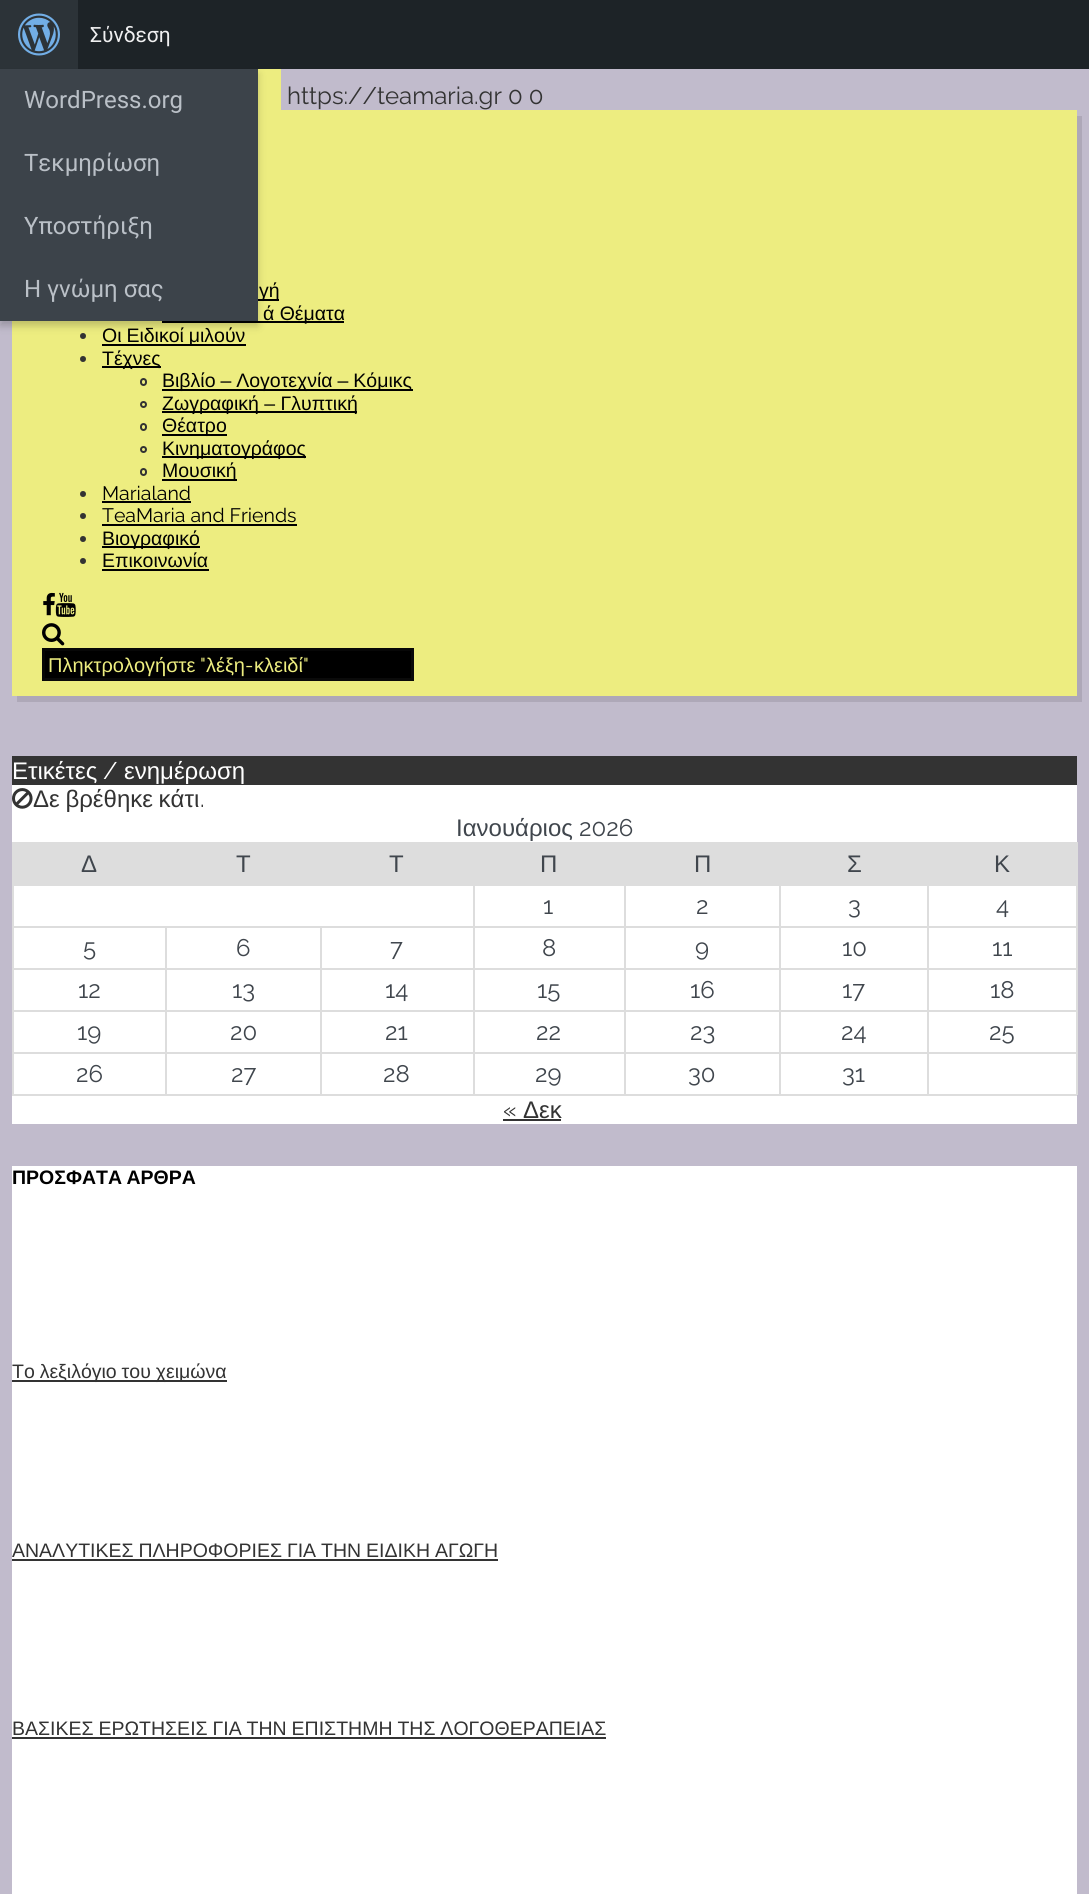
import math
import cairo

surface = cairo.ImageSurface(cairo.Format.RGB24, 1089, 1894)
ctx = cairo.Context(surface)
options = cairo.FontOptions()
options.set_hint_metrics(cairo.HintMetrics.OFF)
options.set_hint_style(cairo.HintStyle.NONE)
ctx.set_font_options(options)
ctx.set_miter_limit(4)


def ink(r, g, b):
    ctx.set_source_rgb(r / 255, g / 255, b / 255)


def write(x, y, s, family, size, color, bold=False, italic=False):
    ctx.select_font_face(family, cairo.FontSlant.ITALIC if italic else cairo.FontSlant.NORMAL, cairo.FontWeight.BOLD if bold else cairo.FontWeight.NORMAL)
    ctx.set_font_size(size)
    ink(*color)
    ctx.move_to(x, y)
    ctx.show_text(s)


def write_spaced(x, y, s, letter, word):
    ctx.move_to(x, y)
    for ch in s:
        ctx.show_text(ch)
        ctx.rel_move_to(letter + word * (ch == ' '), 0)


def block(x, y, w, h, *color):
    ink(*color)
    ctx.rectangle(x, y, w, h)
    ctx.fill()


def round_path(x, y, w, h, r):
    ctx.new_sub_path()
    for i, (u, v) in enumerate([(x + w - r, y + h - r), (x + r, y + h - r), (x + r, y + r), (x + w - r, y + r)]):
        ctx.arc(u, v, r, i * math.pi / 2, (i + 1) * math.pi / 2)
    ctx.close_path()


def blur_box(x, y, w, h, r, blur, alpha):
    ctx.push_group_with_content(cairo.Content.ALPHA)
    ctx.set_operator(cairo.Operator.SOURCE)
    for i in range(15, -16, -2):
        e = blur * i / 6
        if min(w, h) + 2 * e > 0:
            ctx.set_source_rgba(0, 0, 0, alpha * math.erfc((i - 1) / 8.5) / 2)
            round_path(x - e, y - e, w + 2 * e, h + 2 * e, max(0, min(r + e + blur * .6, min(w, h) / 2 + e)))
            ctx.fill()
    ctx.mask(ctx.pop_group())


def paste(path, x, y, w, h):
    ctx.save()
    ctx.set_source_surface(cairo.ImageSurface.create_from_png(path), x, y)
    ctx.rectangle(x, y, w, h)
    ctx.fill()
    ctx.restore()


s1 = dict(family="Roboto", size=21, color=(240, 240, 241))
s2 = dict(family="Roboto", size=24, color=(186, 192, 199))
s3 = dict(family="Raleway", size=24, color=(51, 51, 51))
s4 = dict(family="Liberation Sans", size=19.5, color=(0, 0, 0))
s5 = dict(family="Raleway", size=19.5, color=(0, 0, 0))
s6 = dict(family="Liberation Sans", size=20, color=(237, 237, 128))
s7 = dict(family="Raleway", size=20, color=(237, 237, 128))
s8 = dict(family="Liberation Sans", size=24, color=(255, 255, 255))
s9 = dict(family="Raleway", size=24, color=(255, 255, 255))
s10 = dict(family="Liberation Sans", size=24, color=(64, 70, 77))
s11 = dict(family="Raleway", size=24, color=(64, 70, 77))
s12 = dict(family="Liberation Sans", size=24, color=(51, 51, 51))

ink(193, 187, 204)
ctx.paint()
block(78, 0, 1011, 69, 29, 35, 39)
write(90, 42, "Σύνδεση", **s1)
block(0, 0, 78, 69, 44, 51, 56)
paste("pic1.png", 18, 13, 42, 43)
block(258, 69, 23, 41, 237, 237, 128)
ink(174, 168, 184)
ctx.new_path()
ctx.move_to(17, 696)
ctx.line_to(17, 702)
ctx.line_to(1082, 702)
ctx.line_to(1082, 116)
ctx.line_to(1077, 116)
ctx.line_to(1077, 696)
ctx.close_path()
ctx.fill()
block(12, 110, 1065, 586, 237, 237, 128)
block(258, 299, 21, 2, 0, 0, 0)
block(162, 321, 182, 2, 0, 0, 0)
ink(51, 51, 51)
ctx.arc(83, 336, 3, 0, 2 * math.pi)
ctx.fill()
ink(0, 0, 0)
blur_box(0, 74, 258, 252, 0, 4, 0.2)
block(0, 69, 258, 252, 60, 67, 74)
write(24, 108, "WordPress.org", **s2)
write(24, 171, "Τεκμηρίωση", **s2)
write(24, 234, "Υποστήριξη", **s2)
write(24, 297, "Η γνώμη σας", **s2)
write(287, 104, "https://teamaria.gr 0 0", **s3)
write(259, 297, "γή", **s4)
write(263, 320, "ά Θέματα", **s4)
block(102, 344, 144, 2, 0, 0, 0)
write_spaced(102, 342, "Οι Ειδικοί μιλούν", 0, -0.5)
ink(51, 51, 51)
ctx.new_path()
ctx.arc(83, 359, 3, 0, 2 * math.pi)
ctx.fill()
block(102, 366, 59, 2, 0, 0, 0)
write(102, 365, "Τέχνες", **s4)
round_path(141, 379, 5, 6, 2.5)
ink(51, 51, 51)
ctx.stroke()
block(162, 389, 251, 2, 0, 0, 0)
write_spaced(162, 387, "Βιβλίο – Λογοτεχνία – Κόμικς", 0, -0.5)
ctx.new_path()
ctx.arc(143.5, 404.5, 2.5, 0, 2 * math.pi)
ink(51, 51, 51)
ctx.stroke()
block(162, 411, 195, 2, 0, 0, 0)
write(162, 410, "Ζωγραφική – Γλυπτική", **s4)
round_path(141, 424, 5, 6, 2.5)
ink(51, 51, 51)
ctx.stroke()
block(162, 434, 65, 2, 0, 0, 0)
write(162, 432, "Θέατρο", **s4)
ctx.new_path()
ctx.arc(143.5, 449.5, 2.5, 0, 2 * math.pi)
ink(51, 51, 51)
ctx.stroke()
block(162, 456, 144, 2, 0, 0, 0)
write(162, 455, "Κινηματογράφος", **s4)
round_path(141, 469, 5, 6, 2.5)
ink(51, 51, 51)
ctx.stroke()
block(162, 479, 75, 2, 0, 0, 0)
write(162, 477, "Μουσική", **s4)
ink(51, 51, 51)
ctx.new_path()
ctx.arc(83, 494, 3, 0, 2 * math.pi)
ctx.fill()
write(102, 500, "Marialand", **s5)
block(102, 501, 89, 2, 0, 0, 0)
ink(51, 51, 51)
ctx.new_path()
ctx.arc(83, 516, 3, 0, 2 * math.pi)
ctx.fill()
write(102, 522, "TeaMaria and Friends", **s5)
block(102, 524, 195, 2, 0, 0, 0)
ink(51, 51, 51)
ctx.new_path()
ctx.arc(83, 539, 3, 0, 2 * math.pi)
ctx.fill()
block(102, 546, 98, 2, 0, 0, 0)
write(102, 545, "Βιογραφικό", **s4)
ink(51, 51, 51)
ctx.new_path()
ctx.arc(83, 561, 3, 0, 2 * math.pi)
ctx.fill()
write(102, 567, "Επικοινωνία", **s4)
block(102, 569, 107, 2, 0, 0, 0)
paste("pic2.png", 43, 592, 12, 24)
paste("pic3.png", 55, 592, 21, 25)
paste("pic4.png", 42, 623, 23, 23)
block(42, 648, 372, 33, 0, 0, 0)
ink(7, 7, 7)
ctx.new_path()
ctx.move_to(42, 648)
ctx.line_to(414, 648)
ctx.line_to(411, 651)
ctx.line_to(45, 651)
ctx.close_path()
ctx.fill()
ctx.set_source_rgba(0.2, 0.2, 0.2, 0.2)
ctx.new_path()
ctx.move_to(414, 648)
ctx.line_to(414, 681)
ctx.line_to(411, 678)
ctx.line_to(411, 651)
ctx.close_path()
ctx.fill()
ctx.new_path()
ctx.move_to(414, 681)
ctx.line_to(42, 681)
ctx.line_to(45, 678)
ctx.line_to(411, 678)
ctx.close_path()
ctx.fill()
ctx.set_source_rgba(0.133, 0.133, 0.133, 0.2)
ctx.new_path()
ctx.move_to(42, 681)
ctx.line_to(42, 648)
ctx.line_to(45, 651)
ctx.line_to(45, 678)
ctx.close_path()
ctx.fill()
write(48, 672, "Πληκτρολογήστε", **s6)
write(200, 672, "\"", **s7)
write(206, 672, "λέξη", **s6)
write(254, 672, "κλειδί", **s6)
write(303, 672, "\"", **s7)
write(245, 672, "-", **s7)
block(12, 756, 1065, 29, 51, 51, 51)
write(12, 779, "Ετικέτες", **s8)
write(103, 779, "/", **s9)
write(124, 779, "ενημέρωση", **s8)
block(12, 785, 1065, 339, 255, 255, 255)
paste("pic5.png", 12, 788, 21, 21)
ink(51, 51, 51)
write_spaced(33, 807, "Δε βρέθηκε κάτι", 0, -1)
write(200, 807, ".", **s3)
write(456, 836, "Ιανουάριος", **s10)
write(579, 836, "2026", **s11)
block(14, 844, 1062, 40, 221, 221, 221)
block(12, 842, 1065, 2, 221, 221, 221)
block(927, 884, 150, 2, 221, 221, 221)
block(927, 926, 150, 2, 221, 221, 221)
block(927, 968, 150, 2, 221, 221, 221)
block(927, 1010, 150, 2, 221, 221, 221)
block(927, 1052, 150, 2, 221, 221, 221)
block(1076, 1052, 2, 43, 221, 221, 221)
block(927, 1094, 150, 2, 221, 221, 221)
block(927, 1052, 2, 43, 221, 221, 221)
block(779, 1052, 150, 2, 221, 221, 221)
block(927, 1010, 2, 43, 221, 221, 221)
block(779, 1010, 150, 2, 221, 221, 221)
block(927, 968, 2, 43, 221, 221, 221)
block(779, 968, 150, 2, 221, 221, 221)
block(927, 926, 2, 43, 221, 221, 221)
block(779, 926, 150, 2, 221, 221, 221)
block(927, 884, 2, 43, 221, 221, 221)
block(779, 884, 150, 2, 221, 221, 221)
block(779, 1094, 150, 2, 221, 221, 221)
block(779, 1052, 2, 43, 221, 221, 221)
block(624, 1052, 156, 2, 221, 221, 221)
block(779, 1010, 2, 43, 221, 221, 221)
block(624, 1010, 156, 2, 221, 221, 221)
block(779, 968, 2, 43, 221, 221, 221)
block(624, 968, 156, 2, 221, 221, 221)
block(779, 926, 2, 43, 221, 221, 221)
block(624, 926, 156, 2, 221, 221, 221)
block(779, 884, 2, 43, 221, 221, 221)
block(624, 884, 156, 2, 221, 221, 221)
block(624, 1094, 156, 2, 221, 221, 221)
block(624, 1052, 2, 43, 221, 221, 221)
block(473, 1052, 153, 2, 221, 221, 221)
block(624, 1010, 2, 43, 221, 221, 221)
block(473, 1010, 153, 2, 221, 221, 221)
block(624, 968, 2, 43, 221, 221, 221)
block(473, 968, 153, 2, 221, 221, 221)
block(624, 926, 2, 43, 221, 221, 221)
block(473, 926, 153, 2, 221, 221, 221)
block(624, 884, 2, 43, 221, 221, 221)
block(473, 884, 153, 2, 221, 221, 221)
block(473, 1094, 153, 2, 221, 221, 221)
block(473, 1052, 2, 43, 221, 221, 221)
block(320, 1052, 154, 2, 221, 221, 221)
block(473, 1010, 2, 43, 221, 221, 221)
block(320, 1010, 154, 2, 221, 221, 221)
block(473, 968, 2, 43, 221, 221, 221)
block(320, 968, 154, 2, 221, 221, 221)
block(473, 926, 2, 43, 221, 221, 221)
block(320, 926, 154, 2, 221, 221, 221)
block(473, 884, 2, 43, 221, 221, 221)
block(12, 884, 462, 2, 221, 221, 221)
block(320, 1094, 154, 2, 221, 221, 221)
block(320, 1052, 2, 43, 221, 221, 221)
block(165, 1052, 156, 2, 221, 221, 221)
block(320, 1010, 2, 43, 221, 221, 221)
block(165, 1010, 156, 2, 221, 221, 221)
block(320, 968, 2, 43, 221, 221, 221)
block(165, 968, 156, 2, 221, 221, 221)
block(320, 926, 2, 43, 221, 221, 221)
block(165, 926, 156, 2, 221, 221, 221)
block(165, 1094, 156, 2, 221, 221, 221)
block(165, 1052, 2, 43, 221, 221, 221)
block(12, 1052, 155, 2, 221, 221, 221)
block(165, 1010, 2, 43, 221, 221, 221)
block(12, 1010, 155, 2, 221, 221, 221)
block(165, 968, 2, 43, 221, 221, 221)
block(12, 968, 155, 2, 221, 221, 221)
block(165, 926, 2, 43, 221, 221, 221)
block(12, 926, 155, 2, 221, 221, 221)
block(12, 1094, 155, 2, 221, 221, 221)
block(12, 1052, 2, 43, 221, 221, 221)
block(12, 1010, 2, 43, 221, 221, 221)
block(12, 968, 2, 43, 221, 221, 221)
block(12, 926, 2, 43, 221, 221, 221)
block(12, 884, 2, 43, 221, 221, 221)
block(12, 842, 2, 43, 221, 221, 221)
write(81, 872, "Δ", **s10)
write(236, 872, "Τ", **s10)
write(389, 872, "Τ", **s10)
write(540, 872, "Π", **s10)
write(694, 872, "Π", **s10)
write(847, 872, "Σ", **s10)
block(1076, 1010, 2, 43, 221, 221, 221)
block(1076, 968, 2, 43, 221, 221, 221)
block(1076, 926, 2, 43, 221, 221, 221)
block(1076, 884, 2, 43, 221, 221, 221)
block(1076, 842, 2, 43, 221, 221, 221)
write(994, 872, "Κ", **s10)
write(543, 914, "1", **s11)
write(696, 914, "2", **s11)
write(848, 914, "3", **s11)
write(996, 914, "4", **s11)
write(83, 956, "5", **s11)
write(236, 956, "6", **s11)
write(390, 956, "7", **s11)
write(542, 956, "8", **s11)
write(695, 956, "9", **s11)
write(842, 956, "10", **s11)
write(992, 956, "11", **s11)
write(78, 998, "12", **s11)
write(232, 998, "13", **s11)
write(385, 998, "14", **s11)
write(537, 998, "15", **s11)
write(690, 998, "16", **s11)
write(842, 998, "17", **s11)
write(990, 998, "18", **s11)
write(77, 1040, "19", **s11)
write(230, 1040, "20", **s11)
write(385, 1040, "21", **s11)
write(536, 1040, "22", **s11)
write(690, 1040, "23", **s11)
write(841, 1040, "24", **s11)
write(989, 1040, "25", **s11)
write(76, 1082, "26", **s11)
write(231, 1082, "27", **s11)
write(383, 1082, "28", **s11)
write(535, 1082, "29", **s11)
write(688, 1082, "30", **s11)
write(842, 1082, "31", **s11)
write(503, 1118, "«", **s3)
block(503, 1119, 58, 2, 51, 51, 51)
write(523, 1118, "Δεκ", **s12)
block(12, 1166, 1065, 728, 255, 255, 255)
ctx.select_font_face("Liberation Sans", cairo.FontSlant.NORMAL, cairo.FontWeight.BOLD)
ctx.set_font_size(19.5)
ink(0, 0, 0)
write_spaced(12, 1184, "ΠΡΟΣΦΑΤΑ ΑΡΘΡΑ", 0, -1)
block(12, 1380, 215, 2, 51, 51, 51)
ctx.select_font_face("Liberation Sans")
write_spaced(12, 1378, "Το λεξιλόγιο του χειμώνα", 0, -0.5)
write_spaced(12, 1557, "ΑΝΑΛΥΤΙΚΕΣ ΠΛΗΡΟΦΟΡΙΕΣ ΓΙΑ ΤΗΝ ΕΙΔΙΚΗ ΑΓΩΓΗ", 0, -0.5)
block(12, 1559, 486, 2, 51, 51, 51)
write_spaced(12, 1735, "ΒΑΣΙΚΕΣ ΕΡΩΤΗΣΕΙΣ ΓΙΑ ΤΗΝ ΕΠΙΣΤΗΜΗ ΤΗΣ ΛΟΓΟΘΕΡΑΠΕΙΑΣ", 0, -0.5)
block(12, 1737, 594, 2, 51, 51, 51)
surface.write_to_png("screenshot.png")
